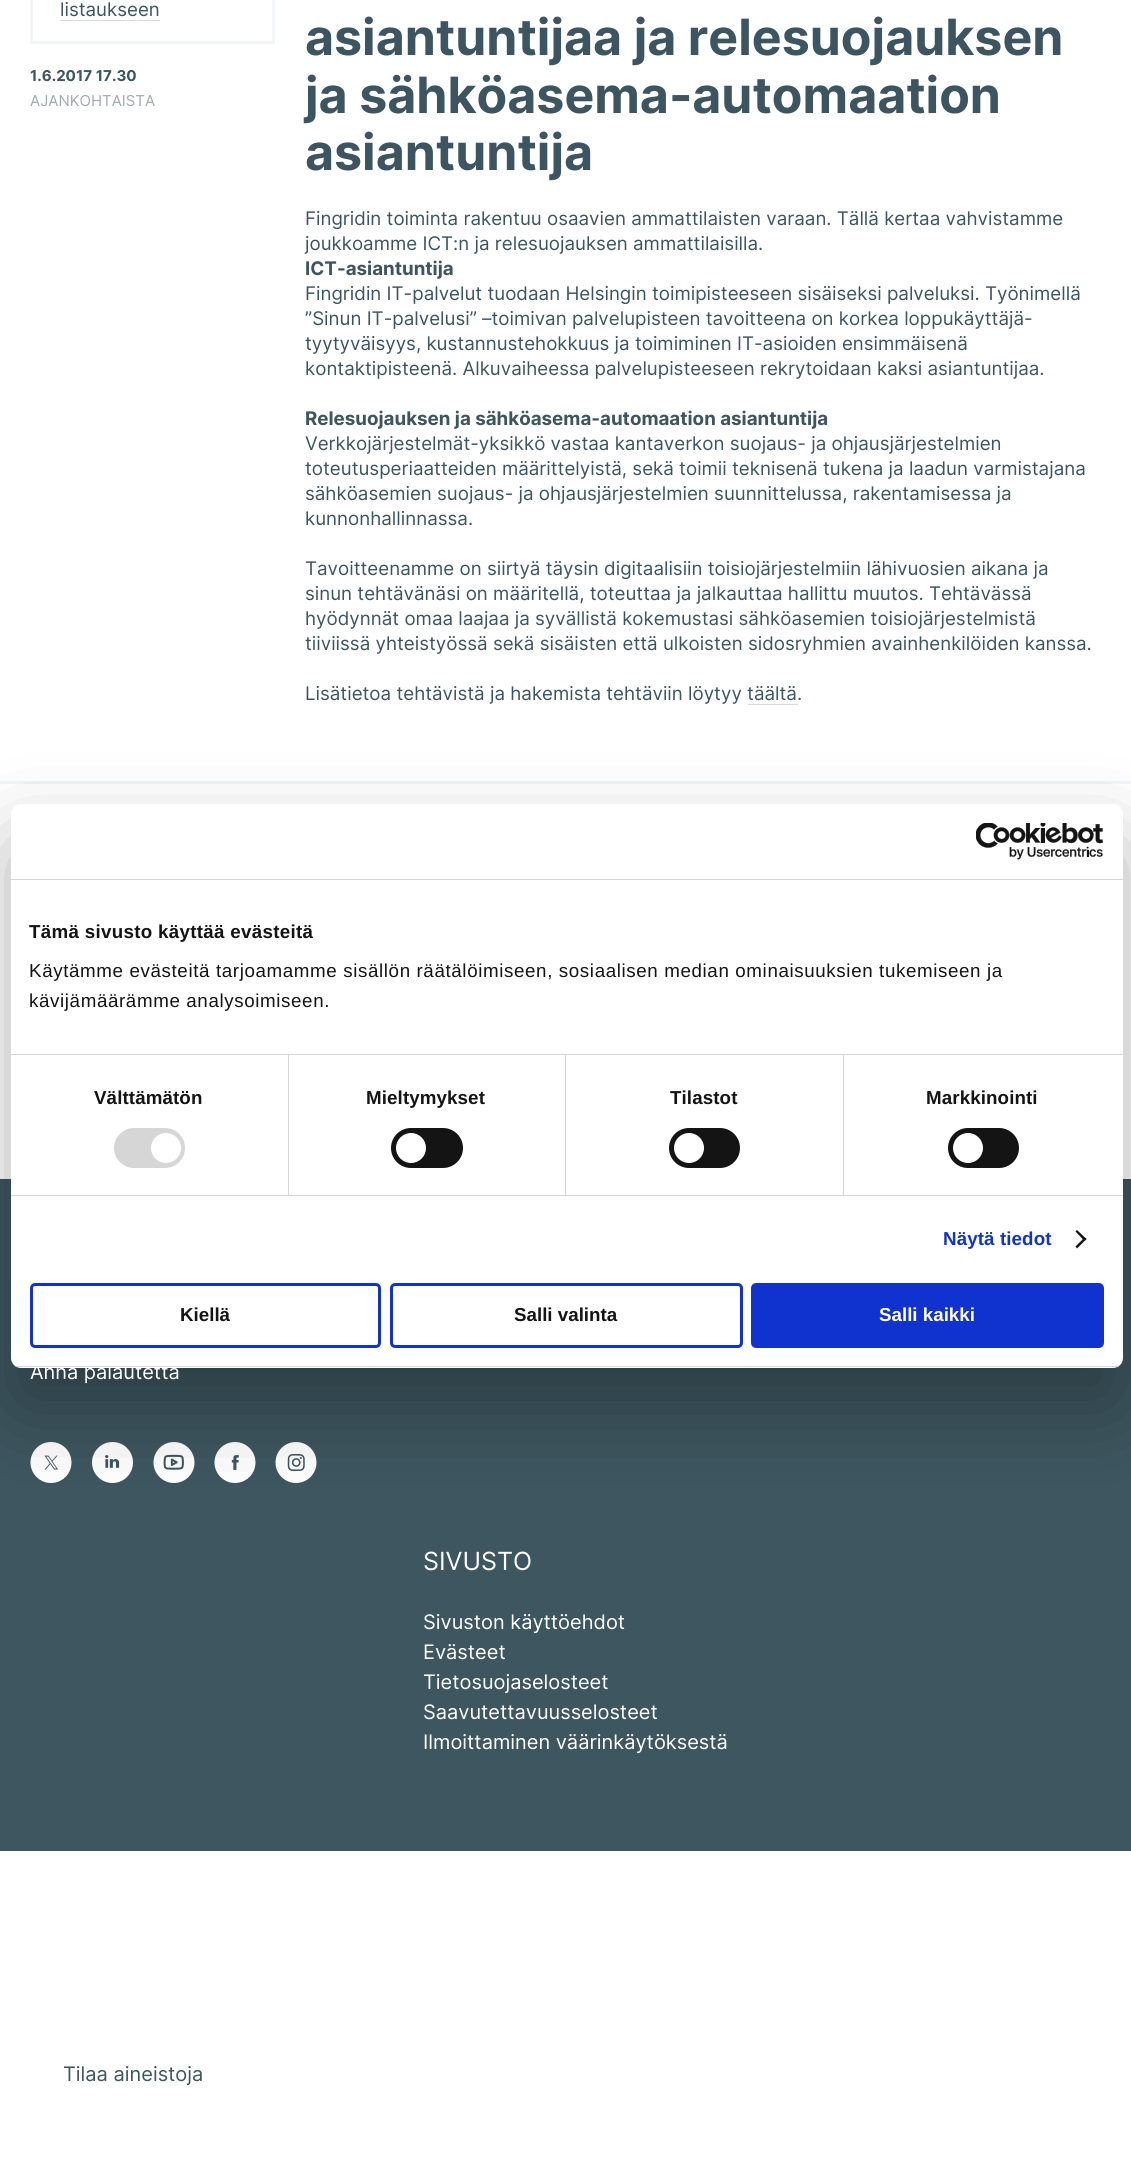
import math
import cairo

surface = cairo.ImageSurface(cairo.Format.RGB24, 1131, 2168)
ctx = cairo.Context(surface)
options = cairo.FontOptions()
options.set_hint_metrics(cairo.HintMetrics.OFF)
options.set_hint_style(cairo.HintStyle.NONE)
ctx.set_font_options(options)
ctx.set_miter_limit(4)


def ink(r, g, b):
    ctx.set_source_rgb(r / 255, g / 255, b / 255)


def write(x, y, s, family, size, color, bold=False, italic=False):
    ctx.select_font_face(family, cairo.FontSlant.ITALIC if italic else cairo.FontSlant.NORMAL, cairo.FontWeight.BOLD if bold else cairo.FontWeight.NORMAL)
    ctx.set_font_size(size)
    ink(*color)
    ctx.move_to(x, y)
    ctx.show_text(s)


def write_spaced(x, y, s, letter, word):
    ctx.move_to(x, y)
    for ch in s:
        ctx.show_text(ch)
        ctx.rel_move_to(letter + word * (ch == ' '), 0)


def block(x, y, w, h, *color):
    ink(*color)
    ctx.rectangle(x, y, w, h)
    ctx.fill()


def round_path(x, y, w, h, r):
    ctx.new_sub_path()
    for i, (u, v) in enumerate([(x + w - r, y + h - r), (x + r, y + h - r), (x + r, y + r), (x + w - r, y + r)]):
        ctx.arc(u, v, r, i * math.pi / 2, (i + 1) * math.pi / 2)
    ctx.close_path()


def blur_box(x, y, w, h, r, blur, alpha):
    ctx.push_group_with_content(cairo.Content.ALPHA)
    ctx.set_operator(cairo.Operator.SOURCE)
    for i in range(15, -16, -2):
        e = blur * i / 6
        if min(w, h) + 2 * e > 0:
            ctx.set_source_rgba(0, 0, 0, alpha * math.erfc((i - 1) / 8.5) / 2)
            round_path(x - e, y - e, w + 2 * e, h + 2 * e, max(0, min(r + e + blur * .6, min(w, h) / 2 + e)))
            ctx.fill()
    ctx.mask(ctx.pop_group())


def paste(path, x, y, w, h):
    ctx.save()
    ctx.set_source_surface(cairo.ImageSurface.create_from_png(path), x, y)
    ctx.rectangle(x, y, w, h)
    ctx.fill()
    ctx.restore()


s1 = dict(family="Inter", size=18.75, color=(61, 85, 96))
s2 = dict(family="Inter", size=15, color=(61, 85, 96), bold=True)
s3 = dict(family="Inter", size=15, color=(158, 170, 176))
s4 = dict(family="Inter", size=50, color=(61, 85, 96), bold=True)
s5 = dict(family="Inter", size=18.75, color=(61, 85, 96), bold=True)
s6 = dict(family="Inter", size=20, color=(255, 255, 255))
s7 = dict(family="Liberation Sans", size=18.75, color=(20, 20, 20), bold=True)
s8 = dict(family="Liberation Sans", size=18.75, color=(255, 255, 255), bold=True)
s9 = dict(family="Inter", size=25, color=(255, 255, 255))
s10 = dict(family="Inter", size=20, color=(61, 85, 96))

ink(255, 255, 255)
ctx.paint()
block(0, 781, 1131, 3, 243, 246, 248)
ctx.rectangle(31.5, -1.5, 242, 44)
ctx.set_line_width(3)
ctx.stroke()
write(60, 16, "listaukseen", **s1)
block(60, 20, 100, 1, 213, 221, 227)
write(30, 81, "1.6.2017 17.30", **s2)
write(30, 106, "AJANKOHTAISTA", **s3)
write(305, 55, "asiantuntijaa ja relesuojauksen", **s4)
write(305, 113, "ja sähköasema-automaation", **s4)
write(305, 170, "asiantuntija", **s4)
write(305, 225, "Fingridin toiminta rakentuu osaavien ammattilaisten varaan. Tällä kertaa vahvistamme", **s1)
write(305, 250, "joukkoamme ICT:n ja relesuojauksen ammattilaisilla.", **s1)
write(305, 275, "ICT-asiantuntija", **s5)
write(305, 300, "Fingridin IT-palvelut tuodaan Helsingin toimipisteeseen sisäiseksi palveluksi. Työnimellä", **s1)
write(305, 325, "”Sinun IT-palvelusi” –toimivan palvelupisteen tavoitteena on korkea loppukäyttäjä-", **s1)
write(305, 350, "tyytyväisyys, kustannustehokkuus ja toimiminen IT-asioiden ensimmäisenä", **s1)
write(305, 375, "kontaktipisteenä. Alkuvaiheessa palvelupisteeseen rekrytoidaan kaksi asiantuntijaa.", **s1)
write(305, 425, "Relesuojauksen ja sähköasema-automaation asiantuntija", **s5)
write(305, 450, "Verkkojärjestelmät-yksikkö vastaa kantaverkon suojaus- ja ohjausjärjestelmien", **s1)
write(305, 475, "toteutusperiaatteiden määrittelyistä, sekä toimii teknisenä tukena ja laadun varmistajana", **s1)
write(305, 500, "sähköasemien suojaus- ja ohjausjärjestelmien suunnittelussa, rakentamisessa ja", **s1)
write(305, 525, "kunnonhallinnassa.", **s1)
write(305, 575, "Tavoitteenamme on siirtyä täysin digitaalisiin toisiojärjestelmiin lähivuosien aikana ja", **s1)
write(305, 600, "sinun tehtävänäsi on määritellä, toteuttaa ja jalkauttaa hallittu muutos. Tehtävässä", **s1)
write(305, 625, "hyödynnät omaa laajaa ja syvällistä kokemustasi sähköasemien toisiojärjestelmistä", **s1)
write(305, 650, "tiiviissä yhteistyössä sekä sisäisten että ulkoisten sidosryhmien avainhenkilöiden kanssa.", **s1)
write(305, 700, "Lisätietoa tehtävistä ja hakemista tehtäviin löytyy täältä.", **s1)
block(748, 704, 50, 1, 213, 221, 227)
block(0, 1179, 1131, 672, 62, 86, 96)
paste("pic2.png", 30, 1442, 42, 41)
paste("pic3.png", 92, 1442, 41, 41)
paste("pic4.png", 153, 1442, 42, 41)
paste("pic5.png", 214, 1442, 42, 41)
paste("pic6.png", 275, 1442, 42, 41)
ink(0, 0, 0)
blur_box(11, 844, 1112, 564, 10, 42.5, 0.3)
ink(255, 255, 255)
round_path(11, 804, 1112, 564, 10)
ctx.fill()
block(11, 879, 1112, 1, 214, 214, 214)
paste("pic1.png", 976, 823, 128, 37)
block(11, 1054, 1112, 1, 214, 214, 214)
ctx.select_font_face("Liberation Sans", cairo.FontSlant.NORMAL, cairo.FontWeight.BOLD)
ink(20, 20, 20)
write_spaced(29, 938, "Tämä sivusto käyttää evästeitä", 0.3, 0)
ctx.select_font_face("Liberation Sans")
write_spaced(29, 977, "Käytämme evästeitä tarjoamamme sisällön räätälöimiseen, sosiaalisen median ominaisuuksien tukemiseen ja", 0.62, 0)
write_spaced(29, 1007, "kävijämäärämme analysoimiseen.", 0.62, 0)
block(11, 1195, 1112, 1, 214, 214, 214)
block(288, 1055, 1, 140, 214, 214, 214)
ctx.select_font_face("Liberation Sans", cairo.FontSlant.NORMAL, cairo.FontWeight.BOLD)
ink(20, 20, 20)
write_spaced(94, 1104, "Välttämätön", 0.1, 0)
ink(214, 214, 214)
round_path(114, 1128, 71, 40, 20)
ctx.fill()
ink(255, 255, 255)
ctx.arc(166, 1148, 15, 0, 2 * math.pi)
ctx.fill()
block(565, 1055, 1, 140, 214, 214, 214)
ink(20, 20, 20)
write_spaced(366, 1104, "Mieltymykset", 0.1, 0)
round_path(391, 1128, 72, 40, 20)
ctx.fill()
ink(255, 255, 255)
ctx.arc(411, 1148, 15, 0, 2 * math.pi)
ctx.fill()
block(843, 1055, 1, 140, 214, 214, 214)
ink(20, 20, 20)
write_spaced(670, 1104, "Tilastot", 0.1, 0)
round_path(669, 1128, 71, 40, 20)
ctx.fill()
ink(255, 255, 255)
ctx.arc(689, 1148, 15, 0, 2 * math.pi)
ctx.fill()
ink(20, 20, 20)
write_spaced(926, 1104, "Markkinointi", 0.1, 0)
round_path(948, 1128, 71, 40, 20)
ctx.fill()
ink(255, 255, 255)
ctx.arc(968, 1148, 15, 0, 2 * math.pi)
ctx.fill()
ink(16, 50, 207)
write_spaced(943, 1245, "Näytä tiedot", 0.1, 0)
ink(20, 20, 20)
ctx.new_path()
ctx.move_to(1077, 1230)
ctx.line_to(1086.5, 1239)
ctx.line_to(1084.5, 1241)
ctx.line_to(1075.5, 1231.5)
ctx.close_path()
ctx.fill()
ctx.new_path()
ctx.move_to(1084.5, 1237.5)
ctx.line_to(1086.5, 1239)
ctx.line_to(1077, 1248.5)
ctx.line_to(1075.5, 1246.5)
ctx.close_path()
ctx.fill()
write(30, 1379, "Anna palautetta", **s6)
ctx.save()
round_path(11, 804, 1112, 564, 10)
ctx.clip()
block(11, 1366, 1112, 1, 214, 214, 214)
ctx.restore()
round_path(31.5, 1284.5, 348, 62, 3.5)
ink(16, 50, 207)
ctx.stroke()
write(180, 1321, "Kiellä", **s7)
round_path(391.5, 1284.5, 350, 62, 3.5)
ink(16, 50, 207)
ctx.stroke()
write(514, 1321, "Salli valinta", **s7)
ink(16, 50, 207)
round_path(752.5, 1284.5, 350, 62, 3.5)
ctx.fill_preserve()
ctx.stroke()
write(879, 1321, "Salli kaikki", **s8)
write(423, 1570, "SIVUSTO", **s9)
write(423, 1629, "Sivuston käyttöehdot", **s6)
write(423, 1659, "Evästeet", **s6)
write(423, 1689, "Tietosuojaselosteet", **s6)
write(423, 1719, "Saavutettavuusselosteet", **s6)
write(423, 1749, "Ilmoittaminen väärinkäytöksestä", **s6)
write(63, 2081, "Tilaa aineistoja", **s10)
surface.write_to_png("screenshot.png")
